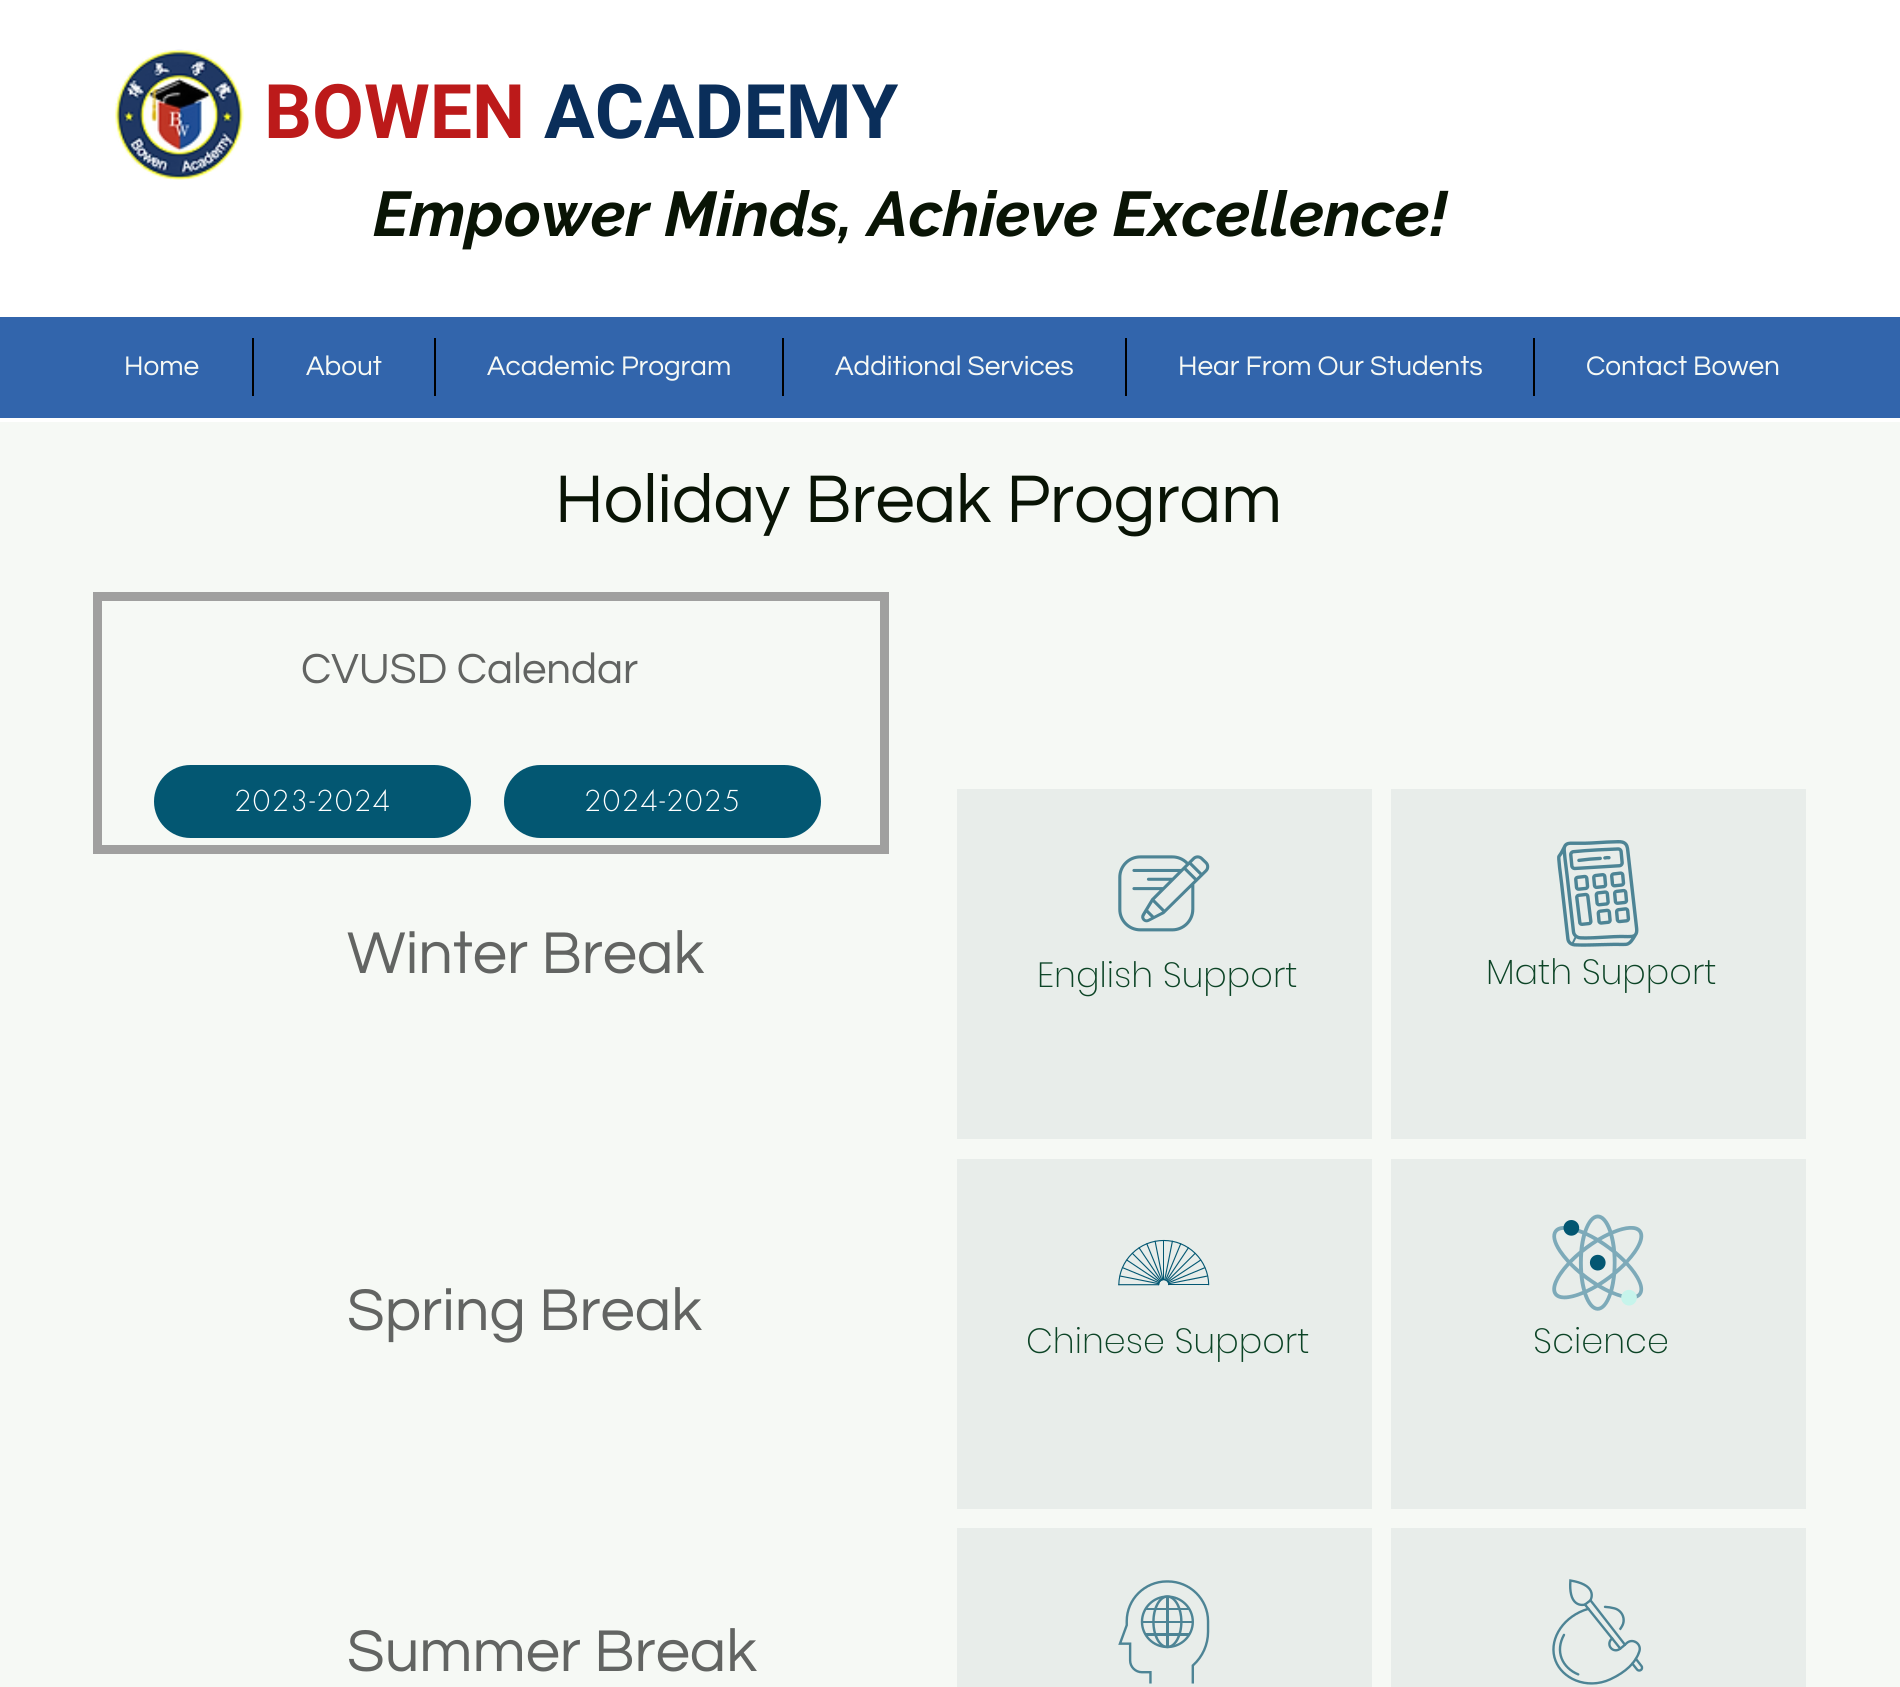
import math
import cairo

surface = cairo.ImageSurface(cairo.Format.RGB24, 1900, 1687)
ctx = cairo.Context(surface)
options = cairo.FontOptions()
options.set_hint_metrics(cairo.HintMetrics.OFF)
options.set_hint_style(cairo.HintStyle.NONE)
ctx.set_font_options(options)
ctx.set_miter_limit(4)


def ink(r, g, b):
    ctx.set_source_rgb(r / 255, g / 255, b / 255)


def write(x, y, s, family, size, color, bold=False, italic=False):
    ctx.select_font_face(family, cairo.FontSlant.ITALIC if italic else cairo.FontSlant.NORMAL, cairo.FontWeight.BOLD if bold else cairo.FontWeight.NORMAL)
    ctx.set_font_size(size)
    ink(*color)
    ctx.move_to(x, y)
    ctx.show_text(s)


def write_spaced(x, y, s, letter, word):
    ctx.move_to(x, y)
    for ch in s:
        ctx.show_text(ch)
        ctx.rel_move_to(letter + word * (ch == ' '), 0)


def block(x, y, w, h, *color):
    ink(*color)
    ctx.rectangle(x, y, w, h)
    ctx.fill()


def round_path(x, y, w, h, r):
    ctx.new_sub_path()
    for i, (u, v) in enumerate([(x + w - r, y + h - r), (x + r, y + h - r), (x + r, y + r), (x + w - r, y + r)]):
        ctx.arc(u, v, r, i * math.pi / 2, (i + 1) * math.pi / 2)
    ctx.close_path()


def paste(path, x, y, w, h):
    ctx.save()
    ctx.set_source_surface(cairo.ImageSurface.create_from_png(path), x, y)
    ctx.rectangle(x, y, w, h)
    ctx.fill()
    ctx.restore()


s1 = dict(family="Roboto", size=75.25, color=(188, 26, 26), bold=True)
s2 = dict(family="Roboto", size=75.25, color=(10, 46, 90), bold=True)
s3 = dict(family="Raleway", size=63, color=(9, 20, 5), bold=True, italic=True)
s4 = dict(family="Questrial", size=28, color=(246, 249, 245))
s5 = dict(family="Questrial", size=70, color=(9, 20, 5))
s6 = dict(family="Questrial", size=43.75, color=(98, 100, 98))
s7 = dict(family="Questrial", size=61.25, color=(98, 100, 98))
s8 = dict(family="Poppins ExtraLight", size=35, color=(12, 68, 38))

ink(255, 255, 255)
ctx.paint()
paste("pic1.png", 115, 49, 129, 131)
write(264, 138, "BOWEN", **s1)
write(544, 138, "ACADEMY", **s2)
write(373, 236, "Empower Minds, Achieve Excellence!", **s3)
block(0, 317, 1900, 101, 50, 101, 172)
write(124, 375, "Home", **s4)
block(252, 338, 2, 58, 0, 0, 0)
write(306, 375, "About", **s4)
block(434, 338, 2, 58, 0, 0, 0)
write(487, 375, "Academic Program", **s4)
block(782, 338, 2, 58, 0, 0, 0)
write(835, 375, "Additional Services", **s4)
block(1125, 338, 2, 58, 0, 0, 0)
write(1178, 375, "Hear From Our Students", **s4)
block(1533, 338, 2, 58, 0, 0, 0)
write(1586, 375, "Contact Bowen", **s4)
block(0, 422, 1900, 1265, 246, 249, 245)
write(555, 522, "Holiday Break Program", **s5)
ctx.rectangle(97.5, 596.5, 787, 253)
ink(160, 160, 159)
ctx.set_line_width(9)
ctx.stroke()
write(301, 683, "CVUSD Calendar", **s6)
ink(3, 87, 114)
round_path(156, 767, 313, 69, 34.5)
ctx.fill_preserve()
ctx.set_line_width(4)
ctx.stroke()
ctx.select_font_face("futura Light")
ctx.set_font_size(28)
ink(255, 255, 255)
write_spaced(234, 811, "2023-2024", 1.5, 0)
ink(3, 87, 114)
round_path(506, 767, 313, 69, 34.5)
ctx.fill_preserve()
ctx.stroke()
ink(255, 255, 255)
write_spaced(584, 811, "2024-2025", 1.5, 0)
write(347, 973, "Winter Break", **s7)
write(347, 1330, "Spring Break", **s7)
block(957, 789, 415, 350, 232, 237, 234)
paste("pic2.png", 1118, 855, 92, 77)
write(1037, 987, "English Support", **s8)
block(957, 1159, 415, 350, 232, 237, 234)
paste("pic3.png", 1118, 1239, 92, 47)
write(1026, 1353, "Chinese Support", **s8)
block(957, 1528, 415, 159, 232, 237, 234)
paste("pic4.png", 1118, 1580, 92, 104)
block(1391, 789, 415, 350, 232, 237, 234)
paste("pic5.png", 1557, 840, 82, 107)
write(1486, 984, "Math Support", **s8)
block(1391, 1159, 415, 350, 232, 237, 234)
paste("pic6.png", 1552, 1214, 92, 97)
write(1533, 1353, "Science", **s8)
block(1391, 1528, 415, 159, 232, 237, 234)
paste("pic7.png", 1552, 1579, 92, 106)
write(347, 1671, "Summer Break", **s7)
surface.write_to_png("screenshot.png")
